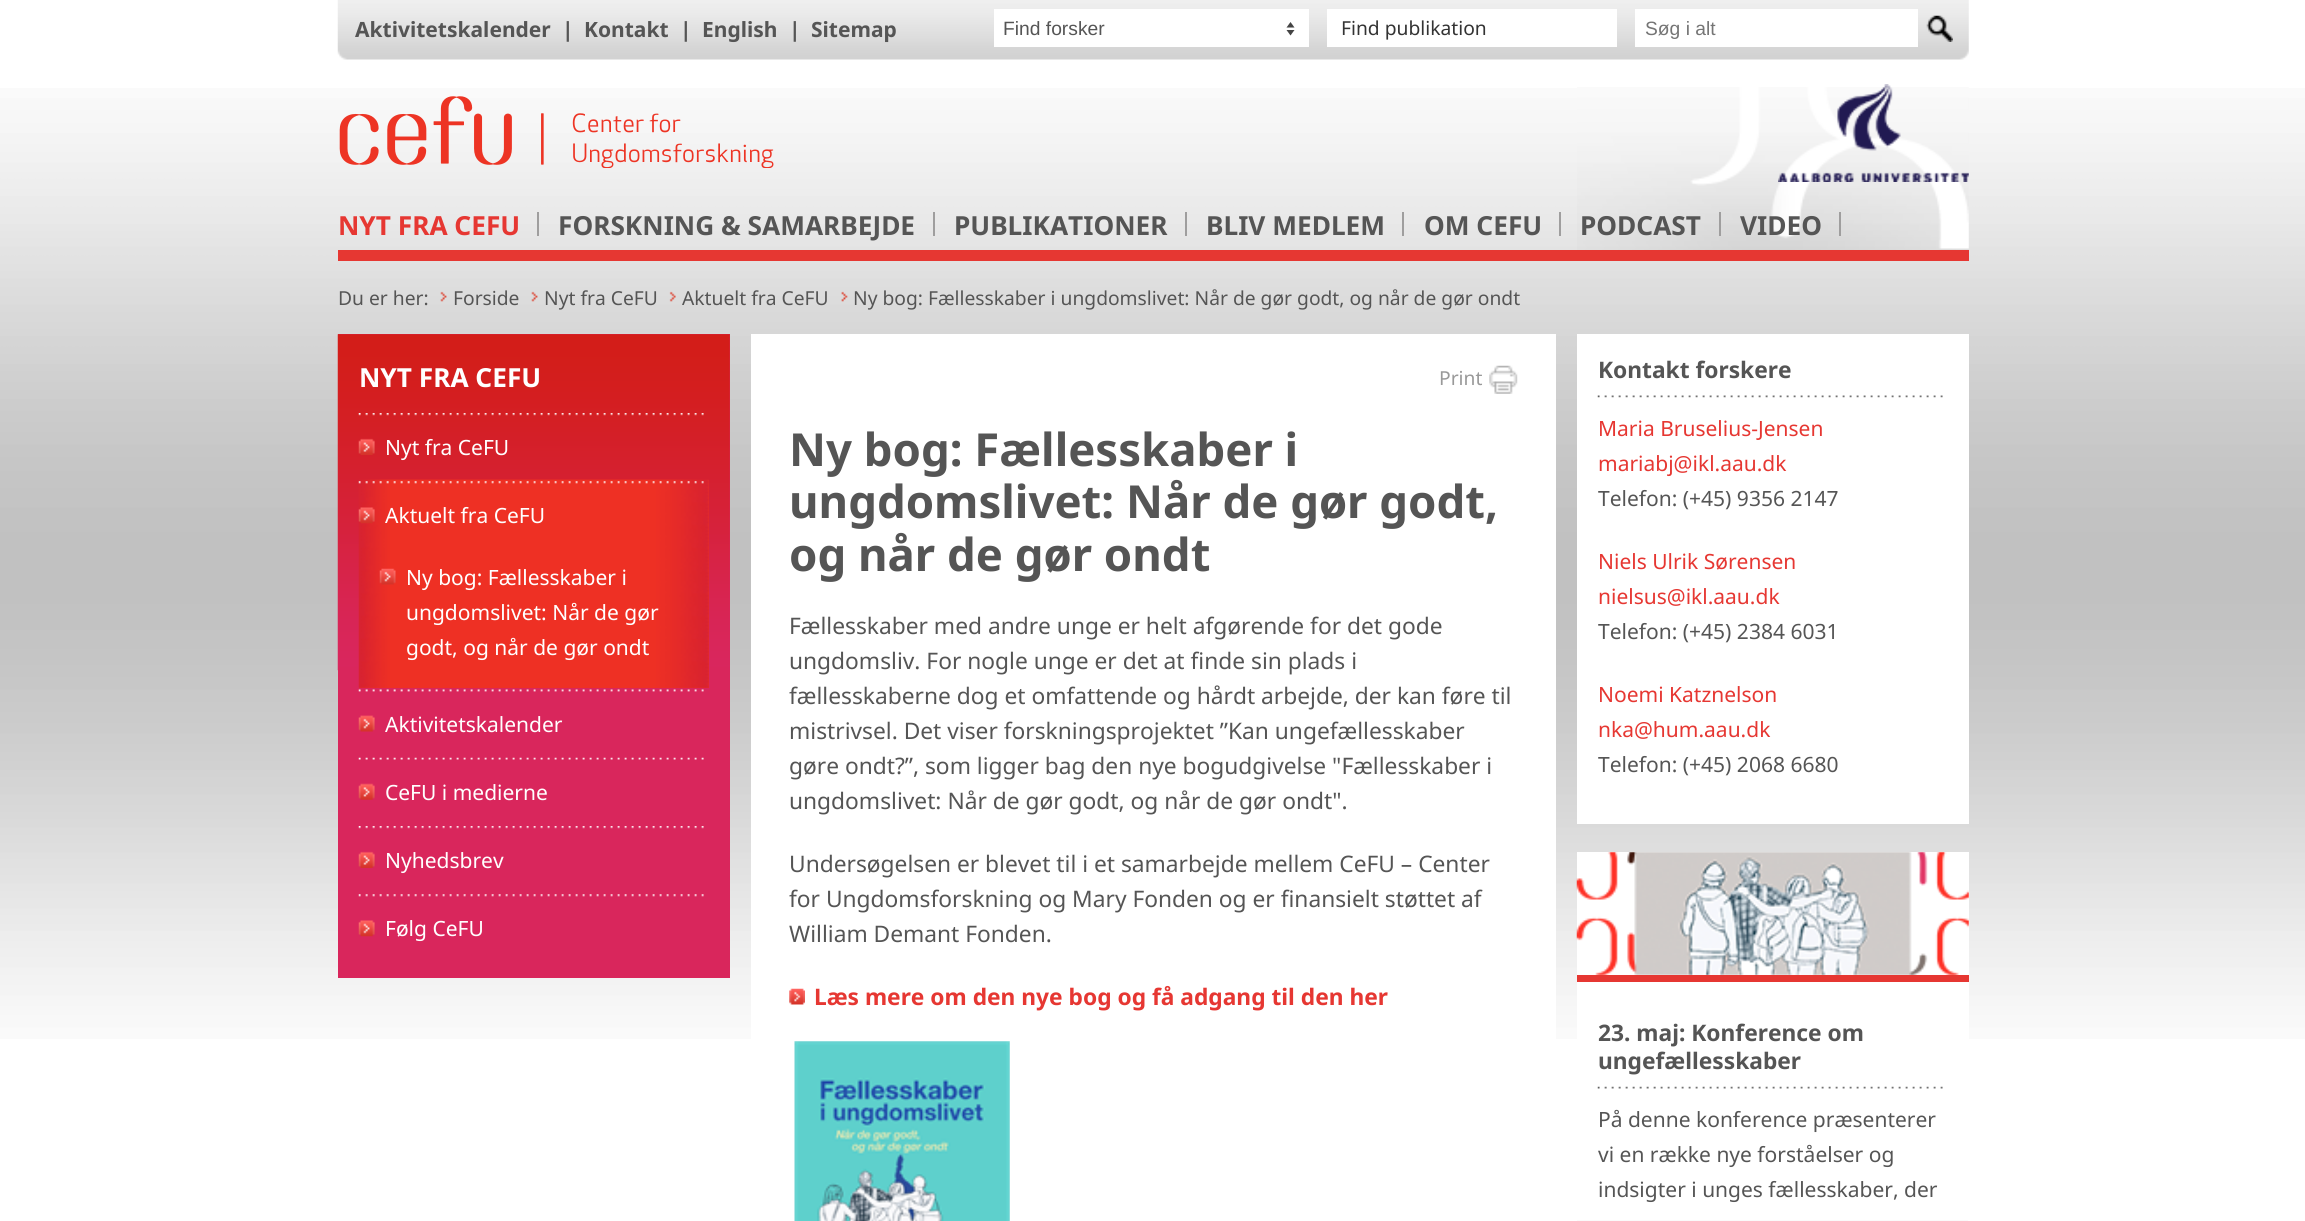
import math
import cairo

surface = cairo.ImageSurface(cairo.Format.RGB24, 2305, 1221)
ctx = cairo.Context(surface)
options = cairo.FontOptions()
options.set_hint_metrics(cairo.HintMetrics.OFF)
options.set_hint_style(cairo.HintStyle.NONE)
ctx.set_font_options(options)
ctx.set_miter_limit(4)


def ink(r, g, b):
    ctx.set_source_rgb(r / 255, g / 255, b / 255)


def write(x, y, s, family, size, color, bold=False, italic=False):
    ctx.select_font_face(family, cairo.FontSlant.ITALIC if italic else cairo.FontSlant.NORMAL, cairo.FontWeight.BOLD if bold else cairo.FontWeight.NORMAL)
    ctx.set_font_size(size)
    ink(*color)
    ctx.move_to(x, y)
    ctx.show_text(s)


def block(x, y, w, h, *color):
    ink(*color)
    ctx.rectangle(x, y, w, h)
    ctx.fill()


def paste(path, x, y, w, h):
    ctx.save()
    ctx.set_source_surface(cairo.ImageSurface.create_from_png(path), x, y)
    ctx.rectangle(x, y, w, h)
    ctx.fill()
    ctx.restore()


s1 = dict(family="Noto Sans", size=21, color=(85, 85, 85), bold=True)
s2 = dict(family="Liberation Sans", size=19.25, color=(85, 85, 85))
s3 = dict(family="Noto Sans", size=19.25, color=(51, 51, 51))
s4 = dict(family="Liberation Sans", size=19.25, color=(117, 117, 117))
s5 = dict(family="Noto Sans", size=26.25, color=(230, 55, 50), bold=True)
s6 = dict(family="Noto Sans", size=26.25, color=(85, 85, 85), bold=True)
s7 = dict(family="Noto Sans", size=19.25, color=(85, 85, 85))
s8 = dict(family="Noto Sans", size=26.25, color=(255, 255, 255), bold=True)
s9 = dict(family="Noto Sans", size=21, color=(255, 255, 255))
s10 = dict(family="Noto Sans", size=19.25, color=(153, 153, 153))
s11 = dict(family="Noto Sans", size=45.5, color=(85, 85, 85), bold=True)
s12 = dict(family="Noto Sans", size=22.75, color=(85, 85, 85))
s13 = dict(family="Noto Sans", size=22.75, color=(230, 55, 50), bold=True)
s14 = dict(family="Noto Sans", size=22.75, color=(85, 85, 85), bold=True)
s15 = dict(family="Noto Sans", size=21, color=(230, 55, 50))
s16 = dict(family="Noto Sans", size=21, color=(85, 85, 85))

ink(255, 255, 255)
ctx.paint()
paste("pic1.png", 0, 88, 2305, 951)
paste("pic2.png", 1577, 87, 392, 163)
paste("pic3.png", 337, 0, 1632, 60)
write(355, 37, "Aktivitetskalender", **s1)
write(562, 37, "|", **s1)
write(584, 37, "Kontakt", **s1)
write(680, 37, "|", **s1)
write(702, 37, "English", **s1)
write(789, 37, "|", **s1)
write(811, 37, "Sitemap", **s1)
block(994, 9, 315, 38, 255, 255, 255)
ink(68, 68, 68)
ctx.new_path()
ctx.move_to(1286.5, 27.5)
ctx.line_to(1290.5, 22)
ctx.line_to(1294.5, 27.5)
ctx.close_path()
ctx.move_to(1294.5, 30)
ctx.line_to(1290.5, 35.5)
ctx.line_to(1286.5, 30)
ctx.close_path()
ctx.fill()
write(1003, 35, "Find forsker", **s2)
block(1327, 9, 290, 38, 255, 255, 255)
write(1341, 35, "Find publikation", **s3)
block(1635, 9, 283, 38, 255, 255, 255)
write(1645, 35, "Søg i alt", **s4)
paste("pic4.png", 1926, 15, 27, 27)
paste("pic5.png", 339, 96, 435, 72)
paste("pic6.png", 1778, 84, 191, 98)
block(338, 250, 1631, 11, 230, 55, 50)
write(338, 235, "NYT FRA CEFU", **s5)
block(537, 212, 2, 24, 159, 158, 158)
write(558, 235, "FORSKNING & SAMARBEJDE", **s6)
block(933, 212, 2, 24, 159, 158, 158)
write(954, 235, "PUBLIKATIONER", **s6)
block(1185, 212, 2, 24, 159, 158, 158)
write(1206, 235, "BLIV MEDLEM", **s6)
block(1402, 212, 2, 24, 159, 158, 158)
write(1424, 235, "OM CEFU", **s6)
block(1559, 212, 2, 24, 159, 158, 158)
write(1580, 235, "PODCAST", **s6)
block(1719, 212, 2, 24, 159, 158, 158)
write(1740, 235, "VIDEO", **s6)
block(1839, 212, 2, 24, 159, 158, 158)
write(338, 305, "Du er her:", **s7)
paste("pic7.png", 440, 291, 7, 11)
write(453, 305, "Forside", **s7)
paste("pic7.png", 531, 291, 7, 11)
write(544, 305, "Nyt fra CeFU", **s7)
paste("pic8.png", 669, 291, 7, 11)
write(682, 305, "Aktuelt fra CeFU", **s7)
paste("pic9.png", 841, 291, 7, 11)
write(853, 305, "Ny bog: Fællesskaber i ungdomslivet: Når de gør godt, og når de gør ondt", **s7)
block(338, 334, 392, 644, 217, 38, 92)
paste("pic10.png", 337, 334, 393, 337)
write(359, 387, "NYT FRA CEFU", **s8)
paste("pic11.png", 358, 413, 346, 42)
write(385, 455, "Nyt fra CeFU", **s9)
block(359, 480, 350, 208, 238, 48, 36)
paste("pic12.png", 358, 479, 351, 209)
paste("pic13.png", 358, 481, 346, 43)
write(385, 523, "Aktuelt fra CeFU", **s9)
paste("pic14.png", 379, 568, 17, 17)
write(406, 585, "Ny bog: Fællesskaber i", **s9)
write(406, 620, "ungdomslivet: Når de gør", **s9)
write(406, 655, "godt, og når de gør ondt", **s9)
paste("pic15.png", 358, 689, 346, 43)
write(385, 732, "Aktivitetskalender", **s9)
paste("pic16.png", 358, 757, 346, 43)
write(385, 800, "CeFU i medierne", **s9)
paste("pic17.png", 358, 826, 346, 42)
write(385, 868, "Nyhedsbrev", **s9)
paste("pic18.png", 358, 894, 346, 43)
write(385, 936, "Følg CeFU", **s9)
block(751, 334, 805, 705, 255, 255, 255)
write(1439, 385, "Print", **s10)
paste("pic19.png", 1489, 365, 29, 29)
write(789, 466, "Ny bog: Fællesskaber i", **s11)
write(789, 518, "ungdomslivet: Når de gør godt,", **s11)
write(789, 571, "og når de gør ondt", **s11)
write(789, 634, "Fællesskaber med andre unge er helt afgørende for det gode", **s12)
write(789, 669, "ungdomsliv. For nogle unge er det at finde sin plads i", **s12)
write(789, 704, "fællesskaberne dog et omfattende og hårdt arbejde, der kan føre til", **s12)
write(789, 739, "mistrivsel. Det viser forskningsprojektet ”Kan ungefællesskaber", **s12)
write(789, 774, "gøre ondt?”, som ligger bag den nye bogudgivelse \"Fællesskaber i", **s12)
write(789, 809, "ungdomslivet: Når de gør godt, og når de gør ondt\".", **s12)
write(789, 872, "Undersøgelsen er blevet til i et samarbejde mellem CeFU – Center", **s12)
write(789, 907, "for Ungdomsforskning og Mary Fonden og er finansielt støttet af", **s12)
write(789, 942, "William Demant Fonden.", **s12)
paste("pic20.png", 789, 988, 16, 17)
write(814, 1005, "Læs mere om den nye bog og få adgang til den her", **s13)
paste("pic21.png", 794, 1041, 216, 180)
block(1577, 334, 392, 490, 255, 255, 255)
paste("pic22.png", 1597, 395, 346, 3)
write(1598, 378, "Kontakt forskere", **s14)
write(1598, 436, "Maria Bruselius-Jensen", **s15)
write(1598, 471, "mariabj@ikl.aau.dk", **s15)
write(1598, 506, "Telefon: (+45) 9356 2147", **s16)
write(1598, 569, "Niels Ulrik Sørensen", **s15)
write(1598, 604, "nielsus@ikl.aau.dk", **s15)
write(1598, 639, "Telefon: (+45) 2384 6031", **s16)
write(1598, 702, "Noemi Katznelson", **s15)
write(1598, 737, "nka@hum.aau.dk", **s15)
write(1598, 772, "Telefon: (+45) 2068 6680", **s16)
block(1577, 852, 392, 187, 255, 255, 255)
block(1577, 1220, 391, 1, 250, 250, 250)
paste("pic23.png", 1576, 852, 393, 123)
block(1577, 975, 392, 7, 230, 55, 50)
paste("pic24.png", 1597, 1086, 346, 3)
write(1598, 1041, "23. maj: Konference om", **s14)
write(1598, 1069, "ungefællesskaber", **s14)
write(1598, 1127, "På denne konference præsenterer", **s16)
write(1598, 1162, "vi en række nye forståelser og", **s16)
write(1598, 1197, "indsigter i unges fællesskaber, der", **s16)
surface.write_to_png("screenshot.png")
